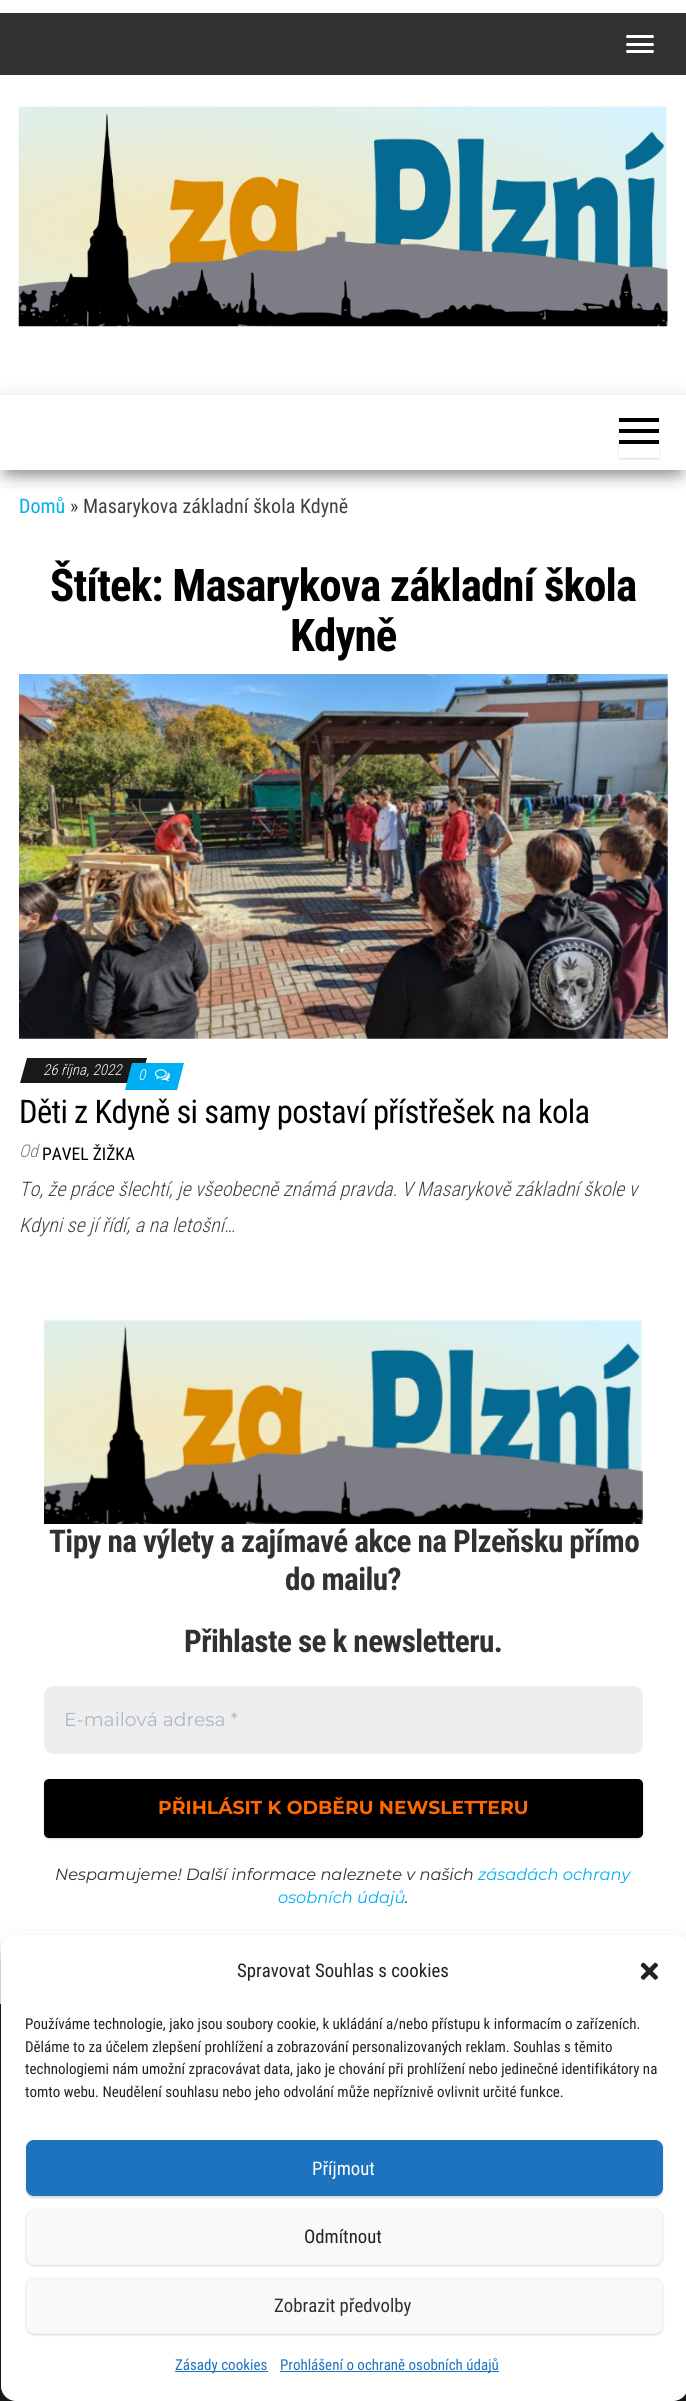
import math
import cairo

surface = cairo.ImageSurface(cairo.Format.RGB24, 686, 2401)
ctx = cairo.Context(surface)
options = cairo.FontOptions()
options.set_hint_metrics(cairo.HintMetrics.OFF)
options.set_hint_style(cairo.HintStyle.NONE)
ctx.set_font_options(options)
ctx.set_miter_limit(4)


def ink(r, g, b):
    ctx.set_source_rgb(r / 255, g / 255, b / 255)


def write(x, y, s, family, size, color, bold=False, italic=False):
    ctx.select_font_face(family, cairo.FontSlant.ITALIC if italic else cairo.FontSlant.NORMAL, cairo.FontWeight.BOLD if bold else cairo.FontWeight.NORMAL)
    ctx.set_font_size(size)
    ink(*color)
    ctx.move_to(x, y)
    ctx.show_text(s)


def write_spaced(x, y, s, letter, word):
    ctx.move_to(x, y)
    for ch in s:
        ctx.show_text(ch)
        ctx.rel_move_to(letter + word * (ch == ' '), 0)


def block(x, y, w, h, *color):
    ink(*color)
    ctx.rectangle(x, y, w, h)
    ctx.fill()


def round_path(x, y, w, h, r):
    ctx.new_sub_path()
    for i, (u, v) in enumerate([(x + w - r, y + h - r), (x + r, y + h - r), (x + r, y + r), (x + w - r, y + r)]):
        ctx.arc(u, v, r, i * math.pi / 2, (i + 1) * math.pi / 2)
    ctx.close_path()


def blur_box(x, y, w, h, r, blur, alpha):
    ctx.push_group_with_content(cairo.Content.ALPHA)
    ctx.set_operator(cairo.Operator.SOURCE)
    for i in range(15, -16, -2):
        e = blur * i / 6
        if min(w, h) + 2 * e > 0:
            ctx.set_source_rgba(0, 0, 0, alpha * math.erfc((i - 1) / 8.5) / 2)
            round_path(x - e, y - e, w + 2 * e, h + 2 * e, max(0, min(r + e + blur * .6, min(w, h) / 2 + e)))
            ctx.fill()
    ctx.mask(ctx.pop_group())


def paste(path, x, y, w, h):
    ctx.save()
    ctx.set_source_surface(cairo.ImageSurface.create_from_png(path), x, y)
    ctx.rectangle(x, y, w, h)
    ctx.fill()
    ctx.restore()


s1 = dict(family="Roboto Condensed", size=20, color=(0, 175, 242))
s2 = dict(family="Roboto Condensed", size=20, color=(64, 64, 64))
s3 = dict(family="Roboto Condensed Light", size=15, color=(255, 255, 255), italic=True)
s4 = dict(family="Roboto Condensed Light", size=17.5, color=(121, 121, 121), italic=True)
s5 = dict(family="Roboto Condensed", size=17.5, color=(0, 0, 0))
s6 = dict(family="Roboto Condensed Light", size=20, color=(64, 64, 64), italic=True)
s7 = dict(family="Montserrat", size=18.75, color=(171, 184, 195))
s8 = dict(family="Montserrat", size=18.75, color=(255, 105, 0), bold=True)
s9 = dict(family="Montserrat", size=16.25, color=(49, 49, 49), italic=True)
s10 = dict(family="Montserrat", size=16.25, color=(0, 175, 242), italic=True)
s11 = dict(family="Roboto Condensed", size=18.75, color=(34, 34, 34))
s12 = dict(family="Roboto Condensed", size=15, color=(34, 34, 34))
s13 = dict(family="Roboto Condensed", size=18.75, color=(255, 255, 255))
s14 = dict(family="Roboto Condensed", size=18.75, color=(49, 49, 49))
s15 = dict(family="Roboto Condensed", size=15, color=(30, 115, 190))

ink(255, 255, 255)
ctx.paint()
block(0, 13, 686, 62, 49, 49, 49)
ink(255, 255, 255)
round_path(626, 35, 28, 3, 1.5)
ctx.fill()
round_path(626, 43, 28, 3, 1.5)
ctx.fill()
round_path(626, 50, 28, 3, 1.5)
ctx.fill()
paste("pic1.png", 18, 106, 650, 221)
ctx.save()
ctx.rectangle(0, 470, 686, 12)
ctx.clip()
ink(0, 0, 0)
blur_box(6, 411, 674, 63, 0, 6, 0.2)
ctx.restore()
ctx.save()
ctx.set_fill_rule(cairo.FillRule.EVEN_ODD)
ctx.new_path()
ctx.move_to(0, 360)
ctx.line_to(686, 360)
ctx.line_to(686, 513)
ctx.line_to(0, 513)
ctx.close_path()
ctx.move_to(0, 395)
ctx.line_to(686, 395)
ctx.line_to(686, 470)
ctx.line_to(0, 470)
ctx.close_path()
ctx.clip()
ink(0, 0, 0)
blur_box(0, 399, 686, 75, 0, 12.5, 0.12)
ctx.restore()
ctx.save()
ctx.rectangle(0, 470, 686, 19)
ctx.clip()
ink(0, 0, 0)
blur_box(15, 423, 656, 45, 0, 12.5, 0.42)
ctx.restore()
ctx.save()
ctx.set_fill_rule(cairo.FillRule.EVEN_ODD)
ctx.new_path()
ctx.move_to(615, 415)
ctx.line_to(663, 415)
ctx.line_to(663, 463)
ctx.line_to(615, 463)
ctx.close_path()
ctx.move_to(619, 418)
ctx.line_to(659, 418)
ctx.line_to(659, 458)
ctx.line_to(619, 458)
ctx.close_path()
ctx.clip()
ink(0, 0, 0)
blur_box(619, 419, 40, 40, 0, 1, 0.15)
ctx.restore()
block(619, 418, 40, 4, 0, 0, 0)
block(619, 429, 40, 4, 0, 0, 0)
block(619, 440, 40, 4, 0, 0, 0)
write(19, 513, "Domů", **s1)
write(70, 513, "» Masarykova základní škola Kdyně", **s2)
ctx.select_font_face("Roboto Condensed", cairo.FontSlant.NORMAL, cairo.FontWeight.BOLD)
ctx.set_font_size(45)
ink(0, 0, 0)
write_spaced(50, 601, "Štítek: Masarykova základní škola", -0.9, 0)
write_spaced(290, 651, "Kdyně", -0.9, 0)
paste("pic2.png", 19, 674, 649, 365)
ink(25, 25, 25)
ctx.new_path()
ctx.move_to(27, 1058)
ctx.line_to(147, 1058)
ctx.line_to(140, 1083)
ctx.line_to(20, 1083)
ctx.close_path()
ctx.fill()
write(43, 1075, "26 října, 2022", **s3)
ink(0, 175, 242)
ctx.new_path()
ctx.move_to(132, 1063)
ctx.line_to(184, 1063)
ctx.line_to(177, 1090)
ctx.line_to(125, 1090)
ctx.close_path()
ctx.fill()
write(138, 1080, "0", **s3)
paste("pic3.png", 155, 1069, 15, 12)
ctx.select_font_face("Roboto Condensed")
ctx.set_font_size(32.5)
ink(0, 0, 0)
write_spaced(19, 1123, "Děti z Kdyně si samy postaví přístřešek na kola", -0.65, 0)
write(19, 1157, "Od", **s4)
write(42, 1160, "PAVEL ŽIŽKA", **s5)
write(19, 1196, "To, že práce šlechtí, je všeobecně známá pravda. V Masarykově základní škole v", **s6)
write(19, 1232, "Kdyni se jí řídí, a na letošní…", **s6)
paste("pic4.png", 44, 1319, 599, 205)
ctx.select_font_face("Roboto Condensed", cairo.FontSlant.NORMAL, cairo.FontWeight.BOLD)
ctx.set_font_size(31.25)
ink(49, 49, 49)
write_spaced(49, 1552, "Tipy na výlety a zajímavé akce na Plzeňsku přímo", -0.6, 0)
write_spaced(285, 1590, "do mailu?", -0.6, 0)
write_spaced(184, 1652, "Přihlaste se k newsletteru.", -0.6, 0)
ink(238, 238, 238)
round_path(44, 1686, 599, 68, 10)
ctx.fill()
write(64, 1726, "E-mailová adresa *", **s7)
ink(0, 0, 0)
blur_box(44, 1780, 599, 59, 5, 1, 0.15)
ink(0, 0, 0)
round_path(44, 1779, 599, 59, 5)
ctx.fill()
write(158, 1814, "PŘIHLÁSIT K ODBĚRU NEWSLETTERU", **s8)
write(55, 1880, "Nespamujeme! Další informace naleznete v našich", **s9)
write(478, 1880, "zásadách ochrany", **s10)
write(278, 1903, "osobních údajů", **s10)
write(405, 1903, ".", **s9)
block(0, 2004, 686, 397, 30, 30, 30)
ctx.save()
ctx.set_fill_rule(cairo.FillRule.EVEN_ODD)
ctx.new_path()
ctx.move_to(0, 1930)
ctx.line_to(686, 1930)
ctx.line_to(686, 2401)
ctx.line_to(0, 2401)
ctx.close_path()
ctx.move_to(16, 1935)
ctx.line_to(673, 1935)
ctx.curve_to(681.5, 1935, 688, 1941.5, 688, 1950)
ctx.line_to(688, 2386)
ctx.curve_to(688, 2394.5, 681.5, 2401, 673, 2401)
ctx.line_to(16, 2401)
ctx.curve_to(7.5, 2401, 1, 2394.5, 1, 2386)
ctx.line_to(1, 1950)
ctx.curve_to(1, 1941.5, 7.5, 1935, 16, 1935)
ctx.close_path()
ctx.clip()
ink(0, 0, 0)
blur_box(1, 1943, 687, 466, 15, 4, 0.23)
ctx.restore()
ctx.save()
ctx.set_fill_rule(cairo.FillRule.EVEN_ODD)
ctx.new_path()
ctx.move_to(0, 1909)
ctx.line_to(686, 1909)
ctx.line_to(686, 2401)
ctx.line_to(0, 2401)
ctx.close_path()
ctx.move_to(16, 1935)
ctx.line_to(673, 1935)
ctx.curve_to(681.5, 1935, 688, 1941.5, 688, 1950)
ctx.line_to(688, 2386)
ctx.curve_to(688, 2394.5, 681.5, 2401, 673, 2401)
ctx.line_to(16, 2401)
ctx.curve_to(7.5, 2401, 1, 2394.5, 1, 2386)
ctx.line_to(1, 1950)
ctx.curve_to(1, 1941.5, 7.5, 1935, 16, 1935)
ctx.close_path()
ctx.clip()
ink(0, 0, 0)
blur_box(1, 1948, 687, 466, 15, 12.5, 0.19)
ctx.restore()
ink(255, 255, 255)
round_path(1, 1935, 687, 466, 15)
ctx.fill()
write(237, 1977, "Spravovat Souhlas s cookies", **s11)
paste("pic5.png", 640, 1962, 18, 18)
write(25, 2029, "Používáme technologie, jako jsou soubory cookie, k ukládání a/nebo přístupu k informacím o zařízeních.", **s12)
write(25, 2052, "Děláme to za účelem zlepšení prohlížení a zobrazování personalizovaných reklam. Souhlas s těmito", **s12)
write(25, 2074, "technologiemi nám umožní zpracovávat data, jako je chování při prohlížení nebo jedinečné identifikátory na", **s12)
write(25, 2097, "tomto webu. Neudělení souhlasu nebo jeho odvolání může nepříznivě ovlivnit určité funkce.", **s12)
ink(0, 0, 0)
blur_box(26, 2141, 637, 57, 8, 1, 0.15)
ink(30, 115, 190)
round_path(26.5, 2140.5, 636, 55, 7.5)
ctx.fill_preserve()
ctx.set_line_width(1)
ctx.stroke()
write(312, 2175, "Příjmout", **s13)
ink(0, 0, 0)
blur_box(26, 2210, 637, 56, 8, 1, 0.15)
ink(249, 249, 249)
round_path(26.5, 2209.5, 636, 55, 7.5)
ctx.fill_preserve()
ink(242, 242, 242)
ctx.stroke()
write(304, 2243, "Odmítnout", **s11)
ink(0, 0, 0)
blur_box(26, 2279, 637, 56, 8, 1, 0.15)
ink(249, 249, 249)
round_path(26.5, 2278.5, 636, 55, 7.5)
ctx.fill_preserve()
ink(242, 242, 242)
ctx.stroke()
write(274, 2312, "Zobrazit předvolby", **s14)
block(175, 2371, 93, 1, 30, 115, 190)
write(175, 2370, "Zásady cookies", **s15)
block(280, 2371, 219, 1, 30, 115, 190)
write(280, 2370, "Prohlášení o ochraně osobních údajů", **s15)
surface.write_to_png("screenshot.png")
